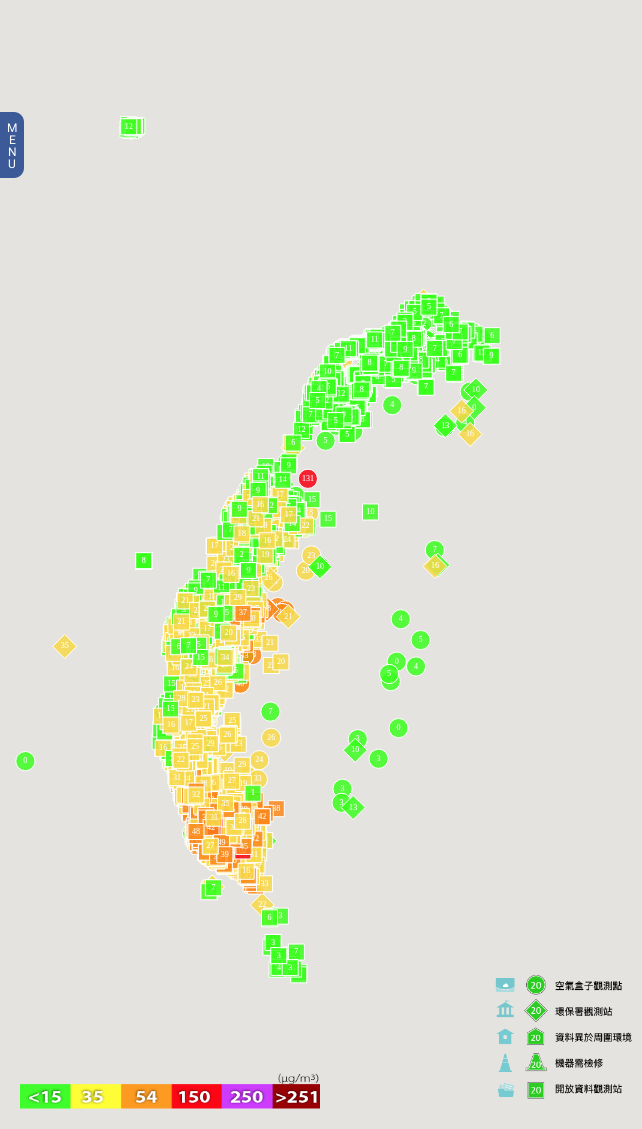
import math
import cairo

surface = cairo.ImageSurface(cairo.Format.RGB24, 642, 1129)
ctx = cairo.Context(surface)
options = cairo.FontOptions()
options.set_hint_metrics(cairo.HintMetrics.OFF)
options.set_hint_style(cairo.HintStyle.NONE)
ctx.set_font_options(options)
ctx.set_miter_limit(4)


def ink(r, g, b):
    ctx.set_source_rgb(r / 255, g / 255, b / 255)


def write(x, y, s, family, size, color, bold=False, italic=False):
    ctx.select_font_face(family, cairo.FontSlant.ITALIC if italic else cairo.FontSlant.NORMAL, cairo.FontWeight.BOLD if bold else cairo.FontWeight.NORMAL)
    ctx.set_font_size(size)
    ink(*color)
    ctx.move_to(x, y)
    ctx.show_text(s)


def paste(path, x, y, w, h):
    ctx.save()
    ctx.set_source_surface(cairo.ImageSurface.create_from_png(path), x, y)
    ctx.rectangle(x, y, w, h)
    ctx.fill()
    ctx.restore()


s1 = dict(family="Roboto", size=12, color=(255, 255, 255))

ink(229, 227, 223)
ctx.paint()
paste("pic1.png", 15, 116, 486, 868)
ink(60, 90, 152)
ctx.new_path()
ctx.move_to(0, 112)
ctx.line_to(14, 112)
ctx.curve_to(19.5, 112, 24, 116.5, 24, 122)
ctx.line_to(24, 168)
ctx.curve_to(24, 173.5, 19.5, 178, 14, 178)
ctx.line_to(0, 178)
ctx.close_path()
ctx.fill()
write(7, 132, "M", **s1)
write(9, 144, "E", **s1)
write(8, 156, "N", **s1)
write(8, 168, "U", **s1)
paste("pic2.png", 20, 1073, 300, 36)
paste("pic3.png", 495, 975, 137, 124)
surface.write_to_png("screenshot.png")
